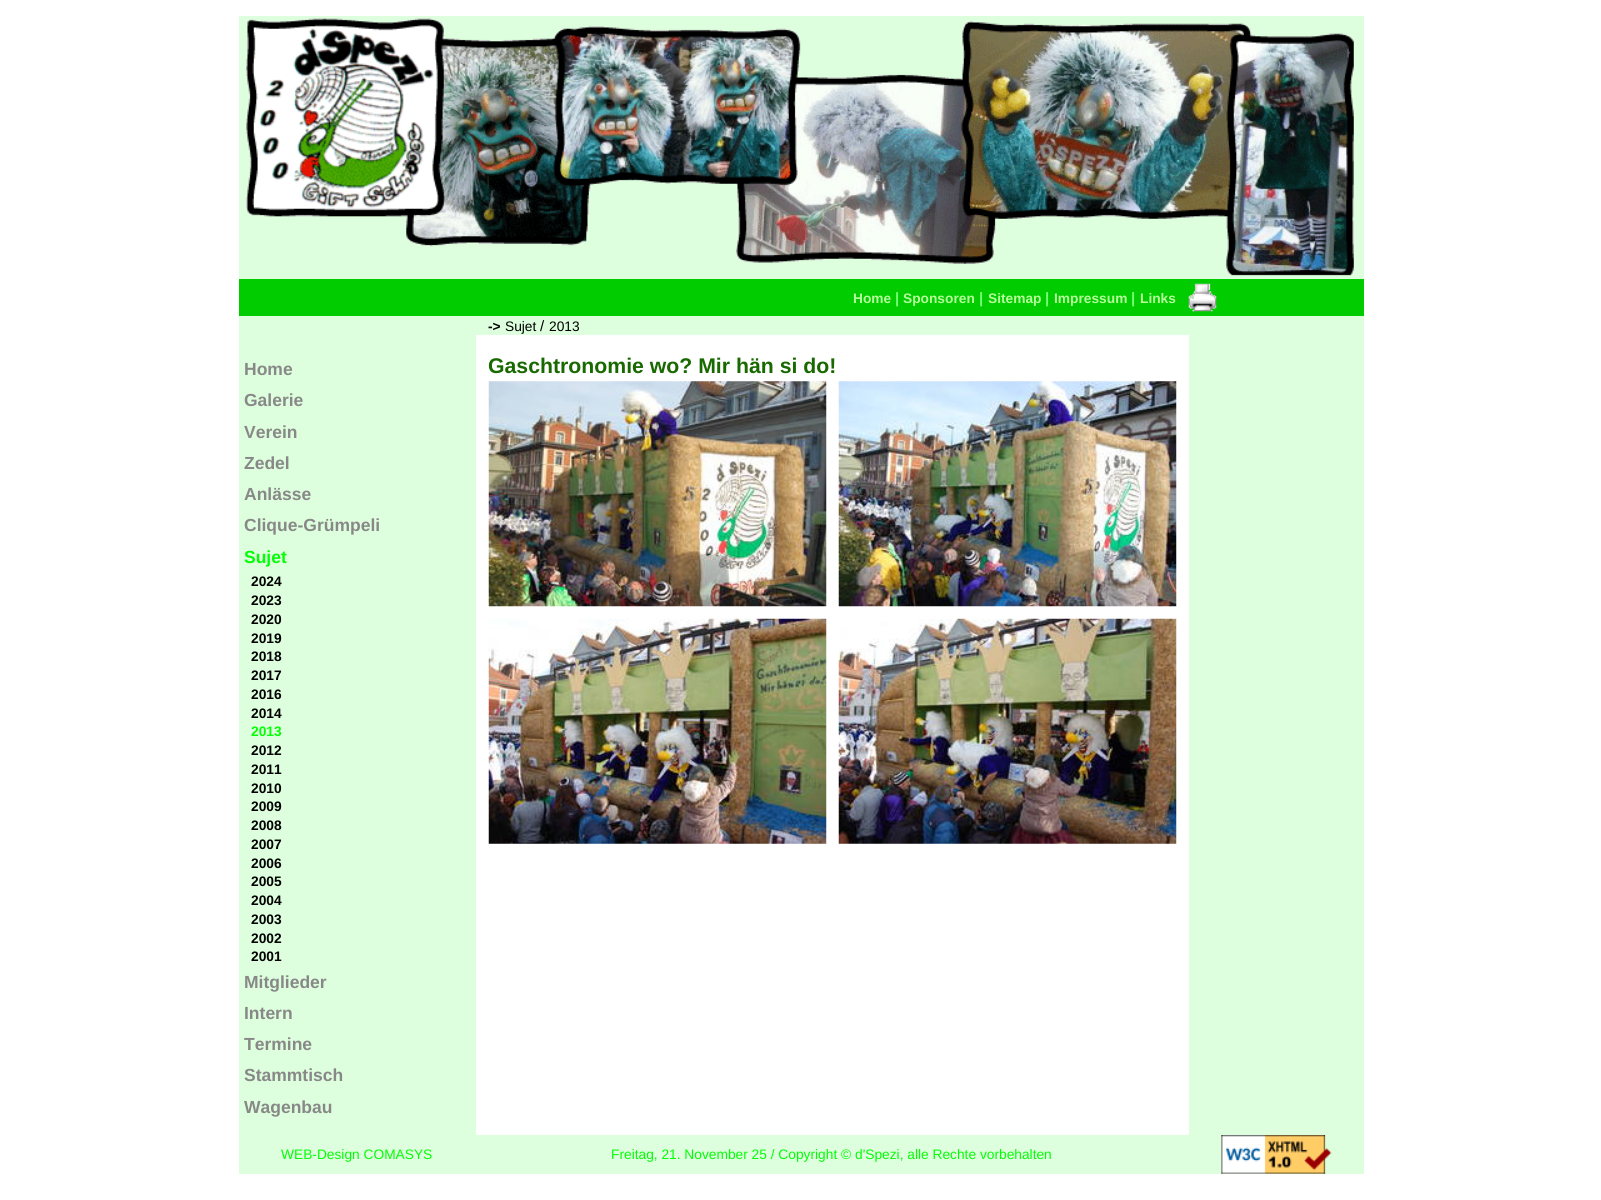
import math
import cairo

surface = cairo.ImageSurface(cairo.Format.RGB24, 1601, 1200)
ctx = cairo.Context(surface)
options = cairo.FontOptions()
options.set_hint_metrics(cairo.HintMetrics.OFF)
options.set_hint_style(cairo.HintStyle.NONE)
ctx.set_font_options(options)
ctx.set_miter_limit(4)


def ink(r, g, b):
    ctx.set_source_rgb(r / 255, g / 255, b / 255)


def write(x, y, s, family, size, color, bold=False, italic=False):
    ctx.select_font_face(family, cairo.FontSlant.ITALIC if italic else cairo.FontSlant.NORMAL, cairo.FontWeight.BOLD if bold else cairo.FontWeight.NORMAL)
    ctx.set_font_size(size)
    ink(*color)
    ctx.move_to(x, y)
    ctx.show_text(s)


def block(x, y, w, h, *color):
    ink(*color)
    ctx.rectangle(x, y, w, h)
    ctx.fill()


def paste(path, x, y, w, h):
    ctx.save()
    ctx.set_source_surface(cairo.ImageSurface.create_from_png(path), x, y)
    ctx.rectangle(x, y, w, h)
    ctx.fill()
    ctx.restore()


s1 = dict(family="Liberation Sans", size=13.75, color=(182, 255, 155), bold=True)
s2 = dict(family="Liberation Sans", size=15, color=(119, 255, 120), bold=True)
s3 = dict(family="Liberation Sans", size=13.75, color=(0, 0, 0), bold=True)
s4 = dict(family="Liberation Sans", size=13.75, color=(0, 0, 0))
s5 = dict(family="Liberation Sans", size=15, color=(0, 0, 0))
s6 = dict(family="Liberation Sans", size=17.5, color=(136, 136, 136), bold=True)
s7 = dict(family="Liberation Sans", size=17.5, color=(2, 255, 4), bold=True)
s8 = dict(family="Liberation Sans", size=13.75, color=(2, 255, 4), bold=True)
s9 = dict(family="Liberation Sans", size=21.25, color=(24, 105, 0), bold=True)
s10 = dict(family="Liberation Sans", size=13.75, color=(2, 255, 4))

ink(255, 255, 255)
ctx.paint()
block(239, 16, 1125, 263, 221, 255, 221)
paste("pic1.png", 246, 18, 1108, 258)
block(239, 279, 1125, 37, 0, 204, 0)
write(853, 303, "Home", **s1)
write(895, 303, "|", **s2)
write(903, 303, "Sponsoren", **s1)
write(979, 303, "|", **s2)
write(988, 303, "Sitemap", **s1)
write(1045, 303, "|", **s2)
write(1054, 303, "Impressum", **s1)
write(1131, 303, "|", **s2)
write(1140, 303, "Links", **s1)
paste("pic2.png", 1188, 283, 29, 29)
block(239, 316, 1125, 19, 221, 255, 221)
write(488, 331, "->", **s3)
write(505, 331, "Sujet", **s4)
write(540, 331, "/", **s5)
write(549, 331, "2013", **s4)
block(239, 335, 237, 839, 221, 255, 221)
block(1189, 335, 175, 800, 221, 255, 221)
write(244, 375, "Home", **s6)
write(244, 406, "Galerie", **s6)
write(244, 438, "Verein", **s6)
write(244, 469, "Zedel", **s6)
write(244, 500, "Anlässe", **s6)
write(244, 531, "Clique-Grümpeli", **s6)
write(244, 563, "Sujet", **s7)
write(251, 586, "2024", **s3)
write(251, 605, "2023", **s3)
write(251, 624, "2020", **s3)
write(251, 643, "2019", **s3)
write(251, 661, "2018", **s3)
write(251, 680, "2017", **s3)
write(251, 699, "2016", **s3)
write(251, 718, "2014", **s3)
write(251, 736, "2013", **s8)
write(251, 755, "2012", **s3)
write(251, 774, "2011", **s3)
write(251, 793, "2010", **s3)
write(251, 811, "2009", **s3)
write(251, 830, "2008", **s3)
write(251, 849, "2007", **s3)
write(251, 868, "2006", **s3)
write(251, 886, "2005", **s3)
write(251, 905, "2004", **s3)
write(251, 924, "2003", **s3)
write(251, 943, "2002", **s3)
write(251, 961, "2001", **s3)
write(244, 988, "Mitglieder", **s6)
write(244, 1019, "Intern", **s6)
write(244, 1050, "Termine", **s6)
write(244, 1081, "Stammtisch", **s6)
write(244, 1113, "Wagenbau", **s6)
write(488, 373, "Gaschtronomie wo? Mir hän si do!", **s9)
paste("pic3.png", 488, 381, 339, 226)
paste("pic4.png", 838, 381, 339, 226)
paste("pic5.png", 488, 618, 339, 226)
paste("pic6.png", 838, 618, 339, 226)
block(476, 1135, 888, 39, 221, 255, 221)
write(281, 1159, "WEB-Design COMASYS", **s10)
write(611, 1159, "Freitag, 21. November 25 / Copyright © d'Spezi, alle Rechte vorbehalten", **s10)
paste("pic7.png", 1221, 1135, 111, 39)
surface.write_to_png("screenshot.png")
